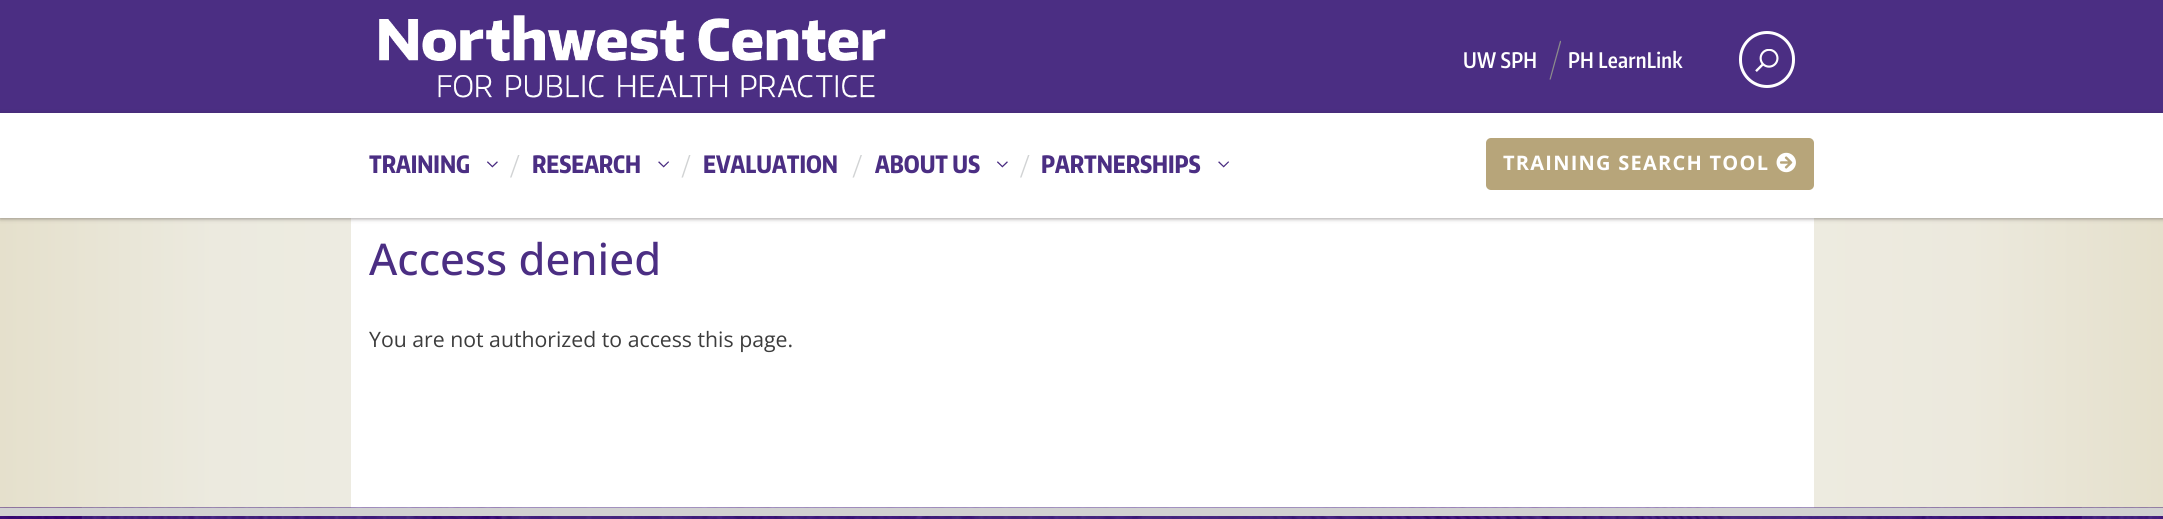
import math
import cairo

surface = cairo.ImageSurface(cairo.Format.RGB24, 2163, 519)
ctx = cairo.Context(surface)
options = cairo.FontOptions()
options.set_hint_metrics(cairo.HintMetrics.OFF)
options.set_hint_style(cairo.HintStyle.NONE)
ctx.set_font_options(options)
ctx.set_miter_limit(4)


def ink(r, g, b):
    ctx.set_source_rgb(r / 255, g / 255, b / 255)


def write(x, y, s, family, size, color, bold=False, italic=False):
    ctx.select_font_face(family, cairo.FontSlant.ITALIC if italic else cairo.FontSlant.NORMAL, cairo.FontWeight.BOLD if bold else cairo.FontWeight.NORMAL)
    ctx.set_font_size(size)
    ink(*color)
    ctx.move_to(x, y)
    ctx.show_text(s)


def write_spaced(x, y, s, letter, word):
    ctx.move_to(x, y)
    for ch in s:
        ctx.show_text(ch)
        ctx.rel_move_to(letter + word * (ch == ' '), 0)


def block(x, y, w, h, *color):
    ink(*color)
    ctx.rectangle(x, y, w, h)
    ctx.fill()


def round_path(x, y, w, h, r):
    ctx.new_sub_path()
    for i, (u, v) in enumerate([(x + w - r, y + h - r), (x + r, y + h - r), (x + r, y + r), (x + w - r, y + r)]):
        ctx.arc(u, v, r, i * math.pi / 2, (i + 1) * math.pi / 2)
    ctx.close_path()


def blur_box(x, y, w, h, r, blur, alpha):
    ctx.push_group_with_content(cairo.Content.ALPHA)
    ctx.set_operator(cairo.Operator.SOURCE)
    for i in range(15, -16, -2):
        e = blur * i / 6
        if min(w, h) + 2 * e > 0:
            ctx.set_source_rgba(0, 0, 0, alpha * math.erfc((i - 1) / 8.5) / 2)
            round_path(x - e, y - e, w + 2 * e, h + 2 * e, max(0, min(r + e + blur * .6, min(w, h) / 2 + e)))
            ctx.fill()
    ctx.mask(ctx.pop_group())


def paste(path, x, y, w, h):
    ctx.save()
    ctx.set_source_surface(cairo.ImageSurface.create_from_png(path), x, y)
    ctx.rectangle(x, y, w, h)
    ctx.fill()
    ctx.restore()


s1 = dict(family="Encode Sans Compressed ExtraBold", size=23.75, color=(75, 46, 131))
s2 = dict(family="Open Sans Medium", size=43.75, color=(75, 46, 131))
s3 = dict(family="Open Sans", size=21.25, color=(61, 61, 61))

ink(255, 255, 255)
ctx.paint()
gradient = cairo.LinearGradient(0, 491, 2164, 491)
gradient.add_color_stop_rgba(0, 0.898, 0.878, 0.8, 1)
gradient.add_color_stop_rgba(0.1, 0.925, 0.918, 0.875, 1)
gradient.add_color_stop_rgba(0.51, 0.957, 0.953, 0.929, 1)
gradient.add_color_stop_rgba(0.91, 0.925, 0.914, 0.867, 1)
gradient.add_color_stop_rgba(1, 0.898, 0.878, 0.8, 1)
ctx.set_source(gradient)
ctx.rectangle(0, 218, 2163, 290)
ctx.fill()
block(0, 0, 2163, 113, 75, 46, 131)
paste("pic1.png", 379, 15, 507, 83)
ctx.select_font_face("Encode Sans Compressed SemiBold")
ctx.set_font_size(21.25)
ink(255, 255, 255)
write_spaced(1463, 68, "UW SPH", 0.25, 0)
paste("pic2.png", 1549, 40, 12, 40)
write_spaced(1568, 68, "PH LearnLink", 0.25, 0)
round_path(1740.5, 32.5, 53, 54, 26.5)
ctx.set_line_width(3)
ctx.stroke()
paste("pic3.png", 1755, 49, 24, 23)
block(351, 218, 1463, 290, 255, 255, 255)
ink(34, 25, 25)
blur_box(0, 114, 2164, 105, 0, 2, 0.4)
block(0, 113, 2163, 105, 255, 255, 255)
write(369, 173, "TRAINING", **s1)
paste("pic4.png", 487, 161, 11, 7)
ink(209, 211, 212)
ctx.new_path()
ctx.move_to(518, 155)
ctx.line_to(510, 177.5)
ctx.line_to(511.5, 177.5)
ctx.line_to(519.5, 155)
ctx.close_path()
ctx.fill()
write(532, 173, "RESEARCH", **s1)
paste("pic5.png", 658, 161, 11, 7)
ink(209, 211, 212)
ctx.new_path()
ctx.move_to(689, 155)
ctx.line_to(681.5, 177.5)
ctx.line_to(683, 177.5)
ctx.line_to(690.5, 155)
ctx.close_path()
ctx.fill()
write(703, 173, "EVALUATION", **s1)
ink(209, 211, 212)
ctx.new_path()
ctx.move_to(860.5, 155)
ctx.line_to(852.5, 177.5)
ctx.line_to(854, 177.5)
ctx.line_to(862, 155)
ctx.close_path()
ctx.fill()
write(875, 173, "ABOUT US", **s1)
paste("pic4.png", 997, 161, 11, 7)
ink(209, 211, 212)
ctx.new_path()
ctx.move_to(1028, 155)
ctx.line_to(1020, 177.5)
ctx.line_to(1021.5, 177.5)
ctx.line_to(1029.5, 155)
ctx.close_path()
ctx.fill()
write(1041, 173, "PARTNERSHIPS", **s1)
paste("pic5.png", 1218, 161, 11, 7)
ink(183, 165, 122)
round_path(1486, 138, 328, 52, 5)
ctx.fill()
ctx.select_font_face("Open Sans", cairo.FontSlant.NORMAL, cairo.FontWeight.BOLD)
ctx.set_font_size(20)
ink(255, 255, 255)
write_spaced(1503, 170, "TRAINING SEARCH TOOL", 1.25, 0)
paste("pic6.png", 1776, 152, 20, 21)
write(369, 275, "Access denied", **s2)
write(369, 347, "You are not authorized to access this page.", **s3)
paste("pic7.png", 0, 507, 2163, 12)
block(0, 508, 2163, 8, 209, 209, 209)
surface.write_to_png("screenshot.png")
